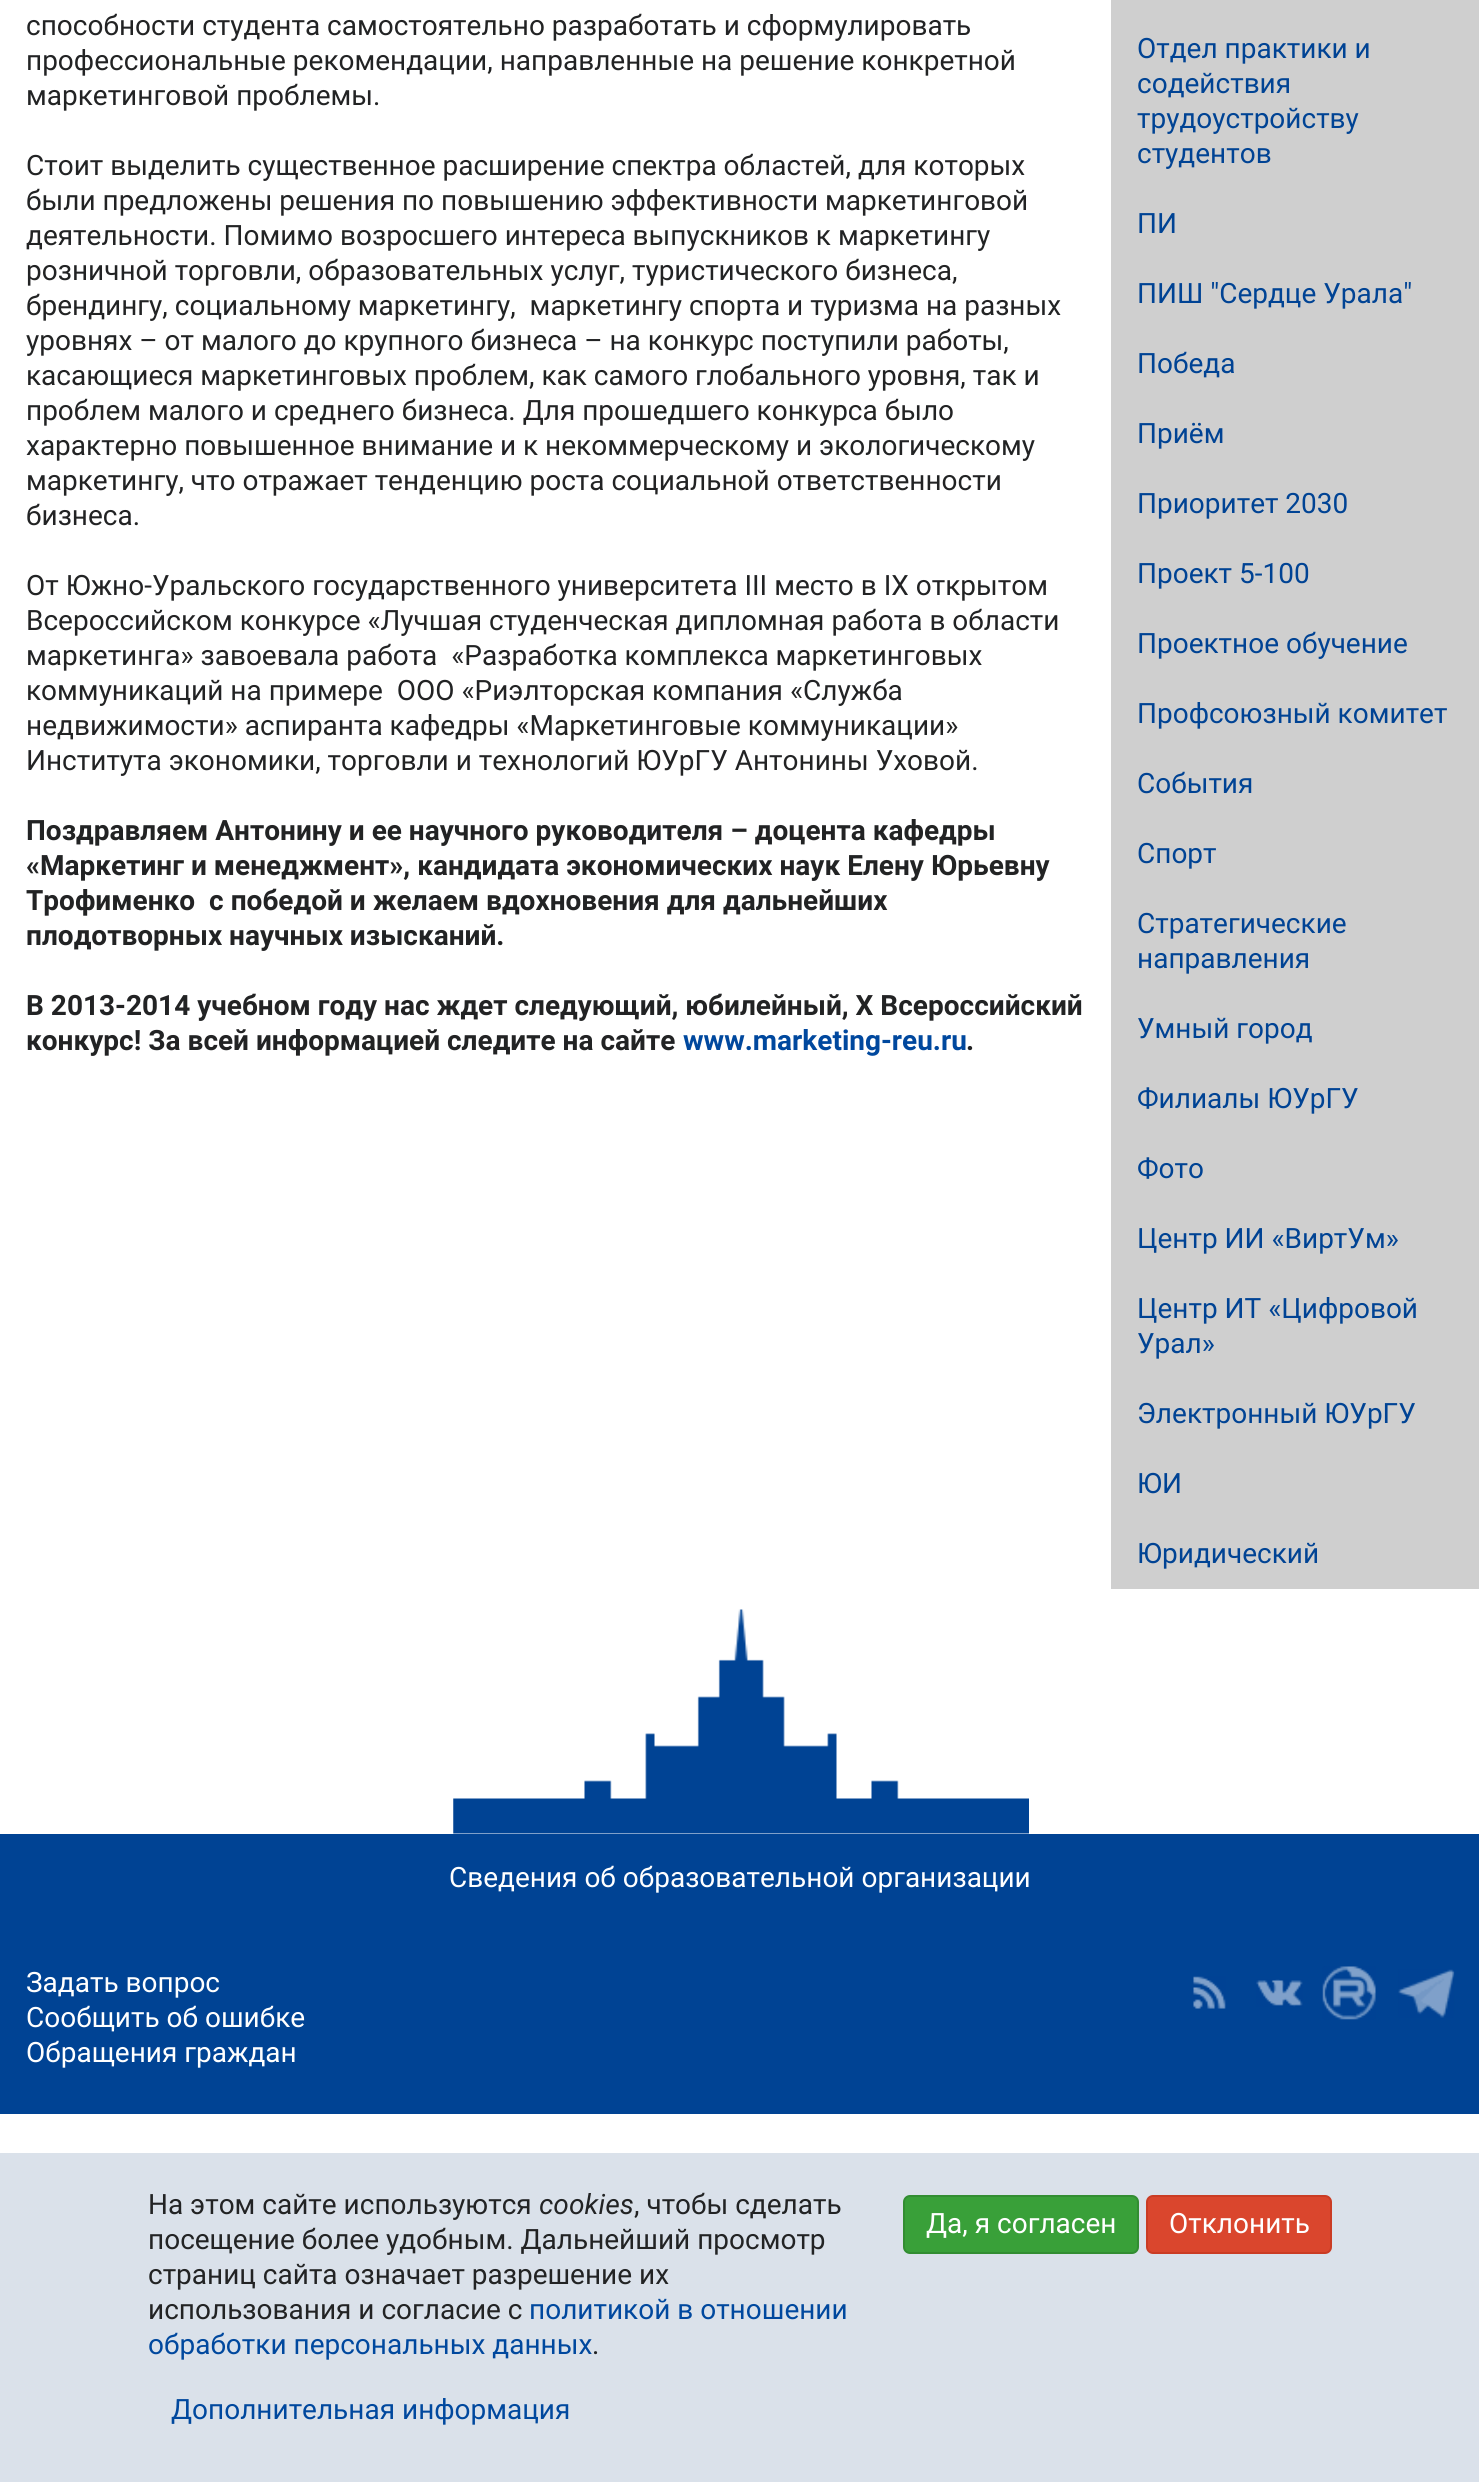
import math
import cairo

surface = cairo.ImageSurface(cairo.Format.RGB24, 1479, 2482)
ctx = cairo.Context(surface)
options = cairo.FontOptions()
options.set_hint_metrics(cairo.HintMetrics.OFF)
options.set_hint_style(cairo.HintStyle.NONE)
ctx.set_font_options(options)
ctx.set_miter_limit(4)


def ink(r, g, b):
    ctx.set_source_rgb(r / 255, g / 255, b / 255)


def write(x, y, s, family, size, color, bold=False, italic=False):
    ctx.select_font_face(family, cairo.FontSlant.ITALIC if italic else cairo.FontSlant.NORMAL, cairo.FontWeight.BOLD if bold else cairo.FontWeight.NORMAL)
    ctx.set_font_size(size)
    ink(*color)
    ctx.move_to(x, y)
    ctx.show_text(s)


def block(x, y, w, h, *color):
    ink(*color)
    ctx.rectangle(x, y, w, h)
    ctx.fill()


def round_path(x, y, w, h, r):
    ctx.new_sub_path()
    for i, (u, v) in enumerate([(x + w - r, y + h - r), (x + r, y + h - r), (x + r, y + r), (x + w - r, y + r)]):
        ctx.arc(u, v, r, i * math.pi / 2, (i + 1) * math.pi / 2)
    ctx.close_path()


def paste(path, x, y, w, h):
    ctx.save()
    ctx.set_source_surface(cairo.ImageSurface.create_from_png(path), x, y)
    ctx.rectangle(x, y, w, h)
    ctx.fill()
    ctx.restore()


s1 = dict(family="Roboto", size=28, color=(34, 35, 36))
s2 = dict(family="Roboto", size=28, color=(34, 35, 36), bold=True)
s3 = dict(family="Roboto", size=28, color=(0, 72, 158), bold=True)
s4 = dict(family="Roboto", size=28, color=(0, 67, 148))
s5 = dict(family="Roboto", size=28, color=(255, 255, 255))
s6 = dict(family="Roboto", size=28, color=(34, 35, 36), italic=True)
s7 = dict(family="Roboto", size=28, color=(0, 72, 158))

ink(255, 255, 255)
ctx.paint()
write(26, 35, "способности студента самостоятельно разработать и сформулировать", **s1)
write(26, 70, "профессиональные рекомендации, направленные на решение конкретной", **s1)
write(26, 105, "маркетинговой проблемы.", **s1)
write(26, 175, "Стоит выделить существенное расширение спектра областей, для которых", **s1)
write(26, 210, "были предложены решения по повышению эффективности маркетинговой", **s1)
write(26, 245, "деятельности. Помимо возросшего интереса выпускников к маркетингу", **s1)
write(26, 280, "розничной торговли, образовательных услуг, туристического бизнеса,", **s1)
write(26, 315, "брендингу, социальному маркетингу,  маркетингу спорта и туризма на разных", **s1)
write(26, 350, "уровнях – от малого до крупного бизнеса – на конкурс поступили работы,", **s1)
write(26, 385, "касающиеся маркетинговых проблем, как самого глобального уровня, так и", **s1)
write(26, 420, "проблем малого и среднего бизнеса. Для прошедшего конкурса было", **s1)
write(26, 455, "характерно повышенное внимание и к некоммерческому и экологическому", **s1)
write(26, 490, "маркетингу, что отражает тенденцию роста социальной ответственности", **s1)
write(26, 525, "бизнеса.", **s1)
write(26, 595, "От Южно-Уральского государственного университета III место в IX открытом", **s1)
write(26, 630, "Всероссийском конкурсе «Лучшая студенческая дипломная работа в области", **s1)
write(26, 665, "маркетинга» завоевала работа  «Разработка комплекса маркетинговых", **s1)
write(26, 700, "коммуникаций на примере  ООО «Риэлторская компания «Служба", **s1)
write(26, 735, "недвижимости» аспиранта кафедры «Маркетинговые коммуникации»", **s1)
write(26, 770, "Института экономики, торговли и технологий ЮУрГУ Антонины Уховой.", **s1)
write(26, 840, "Поздравляем Антонину и ее научного руководителя – доцента кафедры", **s2)
write(26, 875, "«Маркетинг и менеджмент», кандидата экономических наук Елену Юрьевну", **s2)
write(26, 910, "Трофименко  с победой и желаем вдохновения для дальнейших", **s2)
write(26, 945, "плодотворных научных изысканий.", **s2)
write(26, 1015, "В 2013-2014 учебном году нас ждет следующий, юбилейный, X Всероссийский", **s2)
write(26, 1050, "конкурс! За всей информацией следите на сайте", **s2)
write(683, 1050, "www.marketing-reu.ru", **s3)
write(966, 1050, ".", **s2)
block(1111, 0, 368, 1589, 207, 207, 207)
write(1137, 58, "Отдел практики и", **s4)
write(1137, 93, "содействия", **s4)
write(1137, 128, "трудоустройству", **s4)
write(1137, 163, "студентов", **s4)
write(1137, 233, "ПИ", **s4)
write(1137, 303, "ПИШ \"Сердце Урала\"", **s4)
write(1137, 373, "Победа", **s4)
write(1137, 443, "Приём", **s4)
write(1137, 513, "Приоритет 2030", **s4)
write(1137, 583, "Проект 5-100", **s4)
write(1137, 653, "Проектное обучение", **s4)
write(1137, 723, "Профсоюзный комитет", **s4)
write(1137, 793, "События", **s4)
write(1137, 863, "Спорт", **s4)
write(1137, 933, "Стратегические", **s4)
write(1137, 968, "направления", **s4)
write(1137, 1038, "Умный город", **s4)
write(1137, 1108, "Филиалы ЮУрГУ", **s4)
write(1137, 1178, "Фото", **s4)
write(1137, 1248, "Центр ИИ «ВиртУм»", **s4)
write(1137, 1318, "Центр ИТ «Цифровой", **s4)
write(1137, 1353, "Урал»", **s4)
write(1137, 1423, "Электронный ЮУрГУ", **s4)
write(1137, 1493, "ЮИ", **s4)
write(1137, 1563, "Юридический", **s4)
paste("pic1.png", 453, 1609, 576, 225)
block(0, 1834, 1479, 280, 0, 67, 148)
write(449, 1887, "Сведения об образовательной организации", **s5)
write(26, 1992, "Задать вопрос", **s5)
write(26, 2027, "Сообщить об ошибке", **s5)
write(26, 2062, "Обращения граждан", **s5)
paste("pic2.png", 1193, 1976, 33, 33)
paste("pic3.png", 1256, 1979, 47, 28)
paste("pic4.png", 1322, 1966, 54, 54)
paste("pic5.png", 1398, 1969, 57, 49)
block(0, 2153, 1479, 329, 218, 225, 234)
write(148, 2214, "На этом сайте используются", **s1)
write(539, 2214, "cookies", **s6)
write(634, 2214, ", чтобы сделать", **s1)
write(148, 2249, "посещение более удобным. Дальнейший просмотр", **s1)
write(148, 2284, "страниц сайта означает разрешение их", **s1)
write(148, 2319, "использования и согласие с", **s1)
write(529, 2319, "политикой в отношении", **s7)
write(148, 2354, "обработки персональных данных", **s7)
write(592, 2354, ".", **s1)
write(171, 2419, "Дополнительная информация", **s7)
ink(57, 160, 57)
round_path(904, 2196, 234, 57, 6)
ctx.fill_preserve()
ink(50, 141, 50)
ctx.stroke()
write(926, 2233, "Да, я согласен", **s5)
ink(218, 70, 45)
round_path(1147, 2196, 184, 57, 6)
ctx.fill_preserve()
ink(202, 60, 36)
ctx.stroke()
write(1169, 2233, "Отклонить", **s5)
surface.write_to_png("screenshot.png")
